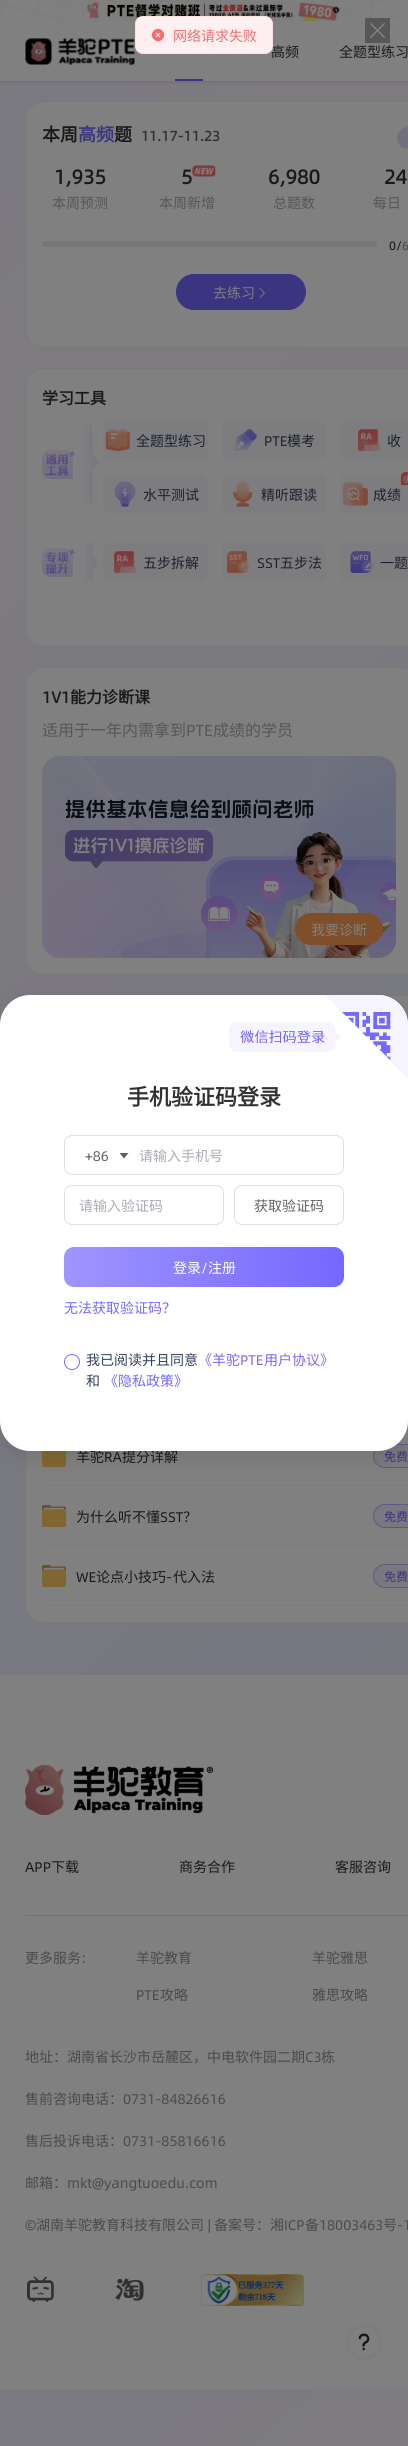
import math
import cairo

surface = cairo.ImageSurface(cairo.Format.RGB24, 408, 2446)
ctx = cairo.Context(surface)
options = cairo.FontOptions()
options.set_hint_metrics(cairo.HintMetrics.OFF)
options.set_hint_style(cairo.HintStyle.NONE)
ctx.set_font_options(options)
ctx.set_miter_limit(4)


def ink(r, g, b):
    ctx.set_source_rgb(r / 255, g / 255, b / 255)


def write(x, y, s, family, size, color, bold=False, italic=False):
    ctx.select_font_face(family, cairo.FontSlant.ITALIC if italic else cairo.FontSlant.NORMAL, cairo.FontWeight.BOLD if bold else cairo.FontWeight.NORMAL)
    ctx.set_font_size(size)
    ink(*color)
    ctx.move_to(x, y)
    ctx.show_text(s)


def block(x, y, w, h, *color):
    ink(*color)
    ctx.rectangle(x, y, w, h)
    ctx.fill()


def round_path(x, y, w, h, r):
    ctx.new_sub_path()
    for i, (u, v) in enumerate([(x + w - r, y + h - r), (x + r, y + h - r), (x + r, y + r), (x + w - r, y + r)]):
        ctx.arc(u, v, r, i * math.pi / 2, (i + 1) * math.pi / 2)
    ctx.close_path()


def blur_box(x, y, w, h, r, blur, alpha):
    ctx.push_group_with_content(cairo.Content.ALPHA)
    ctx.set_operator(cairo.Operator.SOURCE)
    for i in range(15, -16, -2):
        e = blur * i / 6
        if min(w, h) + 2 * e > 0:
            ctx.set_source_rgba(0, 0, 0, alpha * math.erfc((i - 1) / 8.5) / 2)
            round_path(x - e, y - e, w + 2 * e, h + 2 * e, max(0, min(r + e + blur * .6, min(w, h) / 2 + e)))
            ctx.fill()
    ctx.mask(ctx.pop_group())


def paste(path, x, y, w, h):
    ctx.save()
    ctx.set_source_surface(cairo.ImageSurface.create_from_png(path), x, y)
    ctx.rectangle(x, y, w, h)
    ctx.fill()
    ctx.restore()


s1 = dict(family="Noto Sans CJK SC", size=14, color=(24, 25, 26))
s2 = dict(family="Noto Sans CJK SC", size=14, color=(245, 108, 108))
s3 = dict(family="Noto Sans CJK SC", size=18, color=(24, 25, 26), bold=True)
s4 = dict(family="Noto Sans CJK SC", size=18, color=(59, 52, 128), bold=True)
s5 = dict(family="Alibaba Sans", size=14, color=(48, 49, 51), bold=True)
s6 = dict(family="Alibaba Sans", size=20, color=(24, 25, 26), bold=True)
s7 = dict(family="Noto Sans CJK SC", size=14, color=(84, 86, 89))
s8 = dict(family="Alibaba Sans", size=12, color=(16, 17, 19))
s9 = dict(family="Alibaba Sans", size=12, color=(72, 74, 77))
s10 = dict(family="Noto Sans CJK SC", size=14, color=(128, 128, 128))
s11 = dict(family="Noto Sans CJK SC", size=16, color=(24, 25, 26), bold=True)
s12 = dict(family="Noto Sans CJK SC", size=14, color=(27, 33, 46))
s13 = dict(family="Alibaba Sans", size=14, color=(27, 33, 46))
s14 = dict(family="Alibaba Sans", size=16, color=(24, 25, 26), bold=True)
s15 = dict(family="Noto Sans CJK SC", size=16, color=(84, 86, 89))
s16 = dict(family="Alibaba Sans", size=16, color=(84, 86, 89))
s17 = dict(family="Alibaba Sans", size=14, color=(24, 25, 26))
s18 = dict(family="Noto Sans CJK SC", size=12, color=(59, 52, 128))
s19 = dict(family="Noto Sans CJK SC", size=14, color=(72, 74, 77))
s20 = dict(family="Alibaba Sans", size=14, color=(72, 74, 77))
s21 = dict(family="Noto Sans CJK SC", size=22, color=(48, 49, 51), bold=True)
s22 = dict(family="Alibaba Sans", size=14, color=(96, 98, 102))
s23 = dict(family="Noto Sans CJK SC", size=14, color=(168, 171, 178))
s24 = dict(family="Noto Sans CJK SC", size=14, color=(96, 98, 102))
s25 = dict(family="Noto Sans CJK SC", size=14, color=(255, 255, 255))
s26 = dict(family="Alibaba Sans", size=14, color=(255, 255, 255))
s27 = dict(family="Noto Sans CJK SC", size=14, color=(117, 104, 255))
s28 = dict(family="Noto Sans CJK SC", size=14, color=(53, 66, 91))
s29 = dict(family="Alibaba Sans", size=14, color=(117, 104, 255))

ink(255, 255, 255)
ctx.paint()
gradient = cairo.LinearGradient(-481, 433, 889, 1956)
gradient.add_color_stop_rgba(0, 0.478, 0.478, 0.502, 1)
gradient.add_color_stop_rgba(0.17, 0.494, 0.482, 0.498, 1)
gradient.add_color_stop_rgba(0.69, 0.463, 0.467, 0.502, 1)
gradient.add_color_stop_rgba(1, 0.475, 0.478, 0.482, 1)
ctx.set_source(gradient)
ctx.rectangle(0, 0, 408, 1675)
ctx.fill()
gradient = cairo.LinearGradient(-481, 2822, 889, 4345)
gradient.add_color_stop_rgba(0, 0.478, 0.478, 0.502, 1)
gradient.add_color_stop_rgba(0.17, 0.494, 0.482, 0.498, 1)
gradient.add_color_stop_rgba(0.69, 0.463, 0.467, 0.502, 1)
gradient.add_color_stop_rgba(1, 0.475, 0.478, 0.482, 1)
ctx.set_source(gradient)
ctx.rectangle(0, 2389, 408, 57)
ctx.fill()
ink(9, 9, 9)
blur_box(0, 22, 408, 60, 0, 1.5, 0.1)
paste("pic2.png", 0, 0, 408, 21)
block(0, 21, 408, 60, 128, 128, 128)
write(271, 57, "高频", **s1)
ink(254, 240, 240)
round_path(135.5, 16.5, 137, 37, 7.5)
ctx.fill_preserve()
ink(253, 226, 226)
ctx.set_line_width(1)
ctx.stroke()
paste("pic1.png", 151, 28, 14, 14)
write(173, 41, "网络请求失败", **s2)
ctx.set_source_rgba(0, 0, 0, 0.32)
ctx.rectangle(365, 18, 25, 25)
ctx.fill()
paste("pic3.png", 370, 23, 15, 15)
paste("pic4.png", 25, 38, 110, 27)
write(339, 57, "全题型练习", **s1)
block(175, 79, 28, 2, 59, 52, 128)
ink(128, 128, 128)
round_path(25.5, 101.5, 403, 246, 19.5)
ctx.fill_preserve()
ink(121, 121, 121)
ctx.stroke()
write(42, 141, "本周", **s3)
write(78, 141, "高频", **s4)
write(114, 141, "题", **s3)
write(141, 141, "11.17-11.23", **s5)
gradient = cairo.LinearGradient(397, 138, 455, 138)
gradient.add_color_stop_rgba(0, 0.447, 0.431, 0.502, 1)
gradient.add_color_stop_rgba(1, 0.475, 0.467, 0.502, 1)
ctx.set_source(gradient)
ctx.new_path()
ctx.move_to(408, 127)
ctx.line_to(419, 127)
ctx.line_to(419, 149)
ctx.line_to(408, 149)
ctx.curve_to(402, 149, 397, 144, 397, 138)
ctx.curve_to(397, 132, 402, 127, 408, 127)
ctx.close_path()
ctx.fill()
write(54, 184, "1,935", **s6)
write(52, 208, "本周预测", **s7)
write(181, 184, "5", **s6)
paste("pic5.png", 192, 165, 24, 12)
write(159, 208, "本周新增", **s7)
write(268, 184, "6,980", **s6)
write(273, 208, "总题数", **s7)
write(384, 184, "24", **s6)
write(373, 208, "每日", **s7)
ink(118, 119, 123)
round_path(42, 241, 335, 6, 3)
ctx.fill()
write(389, 250, "0/", **s8)
write(402, 250, "6", **s9)
ink(59, 52, 128)
round_path(176.5, 274.5, 129, 35, 17.5)
ctx.fill_preserve()
ctx.stroke()
write(213, 298, "去练习", **s10)
paste("pic6.png", 259, 288, 6, 10)
round_path(25.5, 368.5, 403, 278, 19.5)
ctx.fill_preserve()
ink(121, 121, 121)
ctx.stroke()
write(42, 404, "学习工具", **s11)
paste("pic7.png", 42, 450, 33, 29)
paste("pic8.png", 83, 423, 15, 83)
ink(125, 125, 127)
round_path(103, 420, 105, 40, 8)
ctx.fill()
paste("pic9.png", 105, 429, 26, 22)
write(136, 446, "全题型练习", **s12)
ink(125, 125, 127)
round_path(222, 420, 104, 40, 8)
ctx.fill()
paste("pic10.png", 234, 428, 23, 24)
write(264, 446, "PTE", **s13)
write(287, 446, "模考", **s12)
ink(125, 125, 127)
round_path(340, 420, 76, 40, 8)
ctx.fill()
paste("pic11.png", 358, 429, 22, 23)
write(387, 446, "收", **s12)
ink(125, 125, 127)
round_path(103, 474, 105, 40, 8)
ctx.fill()
paste("pic12.png", 114, 481, 22, 26)
write(143, 500, "水平测试", **s12)
ink(125, 125, 127)
round_path(222, 474, 104, 40, 8)
ctx.fill()
paste("pic13.png", 233, 481, 20, 26)
write(261, 500, "精听跟读", **s12)
ink(125, 125, 127)
round_path(340, 474, 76, 40, 8)
ctx.fill()
paste("pic14.png", 401, 472, 7, 13)
paste("pic15.png", 342, 482, 26, 24)
write(373, 500, "成绩", **s12)
paste("pic16.png", 42, 548, 33, 29)
paste("pic17.png", 85, 542, 13, 40)
ink(125, 125, 127)
round_path(103, 542, 105, 40, 8)
ctx.fill()
paste("pic11.png", 114, 551, 22, 23)
write(143, 568, "五步拆解", **s12)
ink(125, 125, 127)
round_path(222, 542, 104, 40, 8)
ctx.fill()
paste("pic18.png", 226, 551, 25, 22)
write(257, 568, "SST", **s13)
write(280, 568, "五步法", **s12)
ink(125, 125, 127)
round_path(340, 542, 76, 40, 8)
ctx.fill()
paste("pic19.png", 350, 551, 24, 22)
write(380, 568, "一题", **s12)
ink(128, 128, 128)
round_path(25.5, 667.5, 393, 307, 19.5)
ctx.fill_preserve()
ink(121, 121, 121)
ctx.stroke()
write(42, 703, "1V1", **s14)
write(70, 703, "能力诊断课", **s11)
write(42, 736, "适用于一年内需拿到", **s15)
write(186, 736, "PTE", **s16)
write(213, 736, "成绩的学员", **s15)
paste("pic20.png", 42, 756, 354, 202)
ink(127, 79, 42)
round_path(295.5, 913.5, 87, 31, 15.5)
ctx.fill_preserve()
ctx.stroke()
write(311, 935, "我要诊断", **s10)
round_path(25.5, 995.5, 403, 627, 19.5)
ctx.fill_preserve()
ink(121, 121, 121)
ctx.stroke()
block(407, 1425, 1, 1, 123, 123, 123)
paste("pic21.png", 42, 1451, 24, 16)
write(76, 1462, "羊驼", **s1)
write(104, 1462, "RA", **s17)
write(122, 1462, "提分详解", **s1)
ink(121, 120, 128)
round_path(373.5, 1444.5, 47, 23, 11.5)
ctx.fill_preserve()
ink(93, 90, 128)
ctx.stroke()
write(384, 1461, "免费", **s18)
block(42, 1485, 366, 1, 123, 123, 123)
paste("pic22.png", 42, 1505, 24, 22)
write(76, 1522, "为什么听不懂", **s1)
write(160, 1522, "SST", **s17)
write(183, 1522, "？", **s1)
ink(121, 120, 128)
round_path(373.5, 1504.5, 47, 23, 11.5)
ctx.fill_preserve()
ink(93, 90, 128)
ctx.stroke()
write(384, 1521, "免费", **s18)
block(42, 1545, 366, 1, 123, 123, 123)
paste("pic22.png", 42, 1565, 24, 22)
write(76, 1582, "WE", **s17)
write(96, 1582, "论点小技巧", **s1)
write(166, 1582, "-", **s17)
write(173, 1582, "代入法", **s1)
ink(121, 120, 128)
round_path(373.5, 1564.5, 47, 23, 11.5)
ctx.fill_preserve()
ink(93, 90, 128)
ctx.stroke()
write(384, 1581, "免费", **s18)
block(42, 1605, 366, 1, 123, 123, 123)
block(0, 1675, 408, 714, 128, 128, 128)
block(25, 1915, 383, 1, 113, 113, 113)
paste("pic23.png", 25, 1765, 188, 50)
write(25, 1872, "APP", **s17)
write(51, 1872, "下载", **s1)
write(179, 1872, "商务合作", **s1)
write(335, 1872, "客服咨询", **s1)
write(25, 1963, "更多服务", **s19)
write(81, 1963, ":", **s20)
write(136, 1963, "羊驼教育", **s19)
write(312, 1963, "羊驼雅思", **s19)
write(136, 2000, "PTE", **s20)
write(160, 2000, "攻略", **s19)
write(312, 2000, "雅思攻略", **s19)
write(25, 2062, "地址：湖南省长沙市岳麓区，中电软件园二期", **s19)
write(305, 2062, "C3", **s20)
write(321, 2062, "栋", **s19)
write(25, 2104, "售前咨询电话：", **s19)
write(123, 2104, "0731-84826616", **s20)
write(25, 2146, "售后投诉电话：", **s19)
write(123, 2146, "0731-85816616", **s20)
write(25, 2188, "邮箱：", **s19)
write(67, 2188, "mkt@yangtuoedu.com", **s20)
write(25, 2230, "©", **s20)
write(36, 2230, "湖南羊驼教育科技有限公司", **s19)
write(208, 2230, "|", **s20)
write(214, 2230, "备案号：湘", **s19)
write(284, 2230, "ICP", **s20)
write(305, 2230, "备", **s19)
write(319, 2230, "18003463", **s20)
write(383, 2230, "号", **s19)
write(397, 2230, "-1", **s20)
paste("pic24.png", 27, 2276, 27, 26)
paste("pic25.png", 115, 2278, 29, 23)
paste("pic26.png", 201, 2274, 103, 32)
paste("pic27.png", 347, 2325, 34, 34)
ink(0, 0, 0)
blur_box(0, 1003, 408, 456, 30, 10, 0.08)
ink(255, 255, 255)
round_path(0, 995, 408, 456, 30)
ctx.fill()
paste("pic29.png", 325, 995, 83, 83)
paste("pic28.png", 229, 1022, 112, 30)
write(127, 1105, "手机验证码登录", **s21)
round_path(64.5, 1135.5, 279, 39, 7.5)
ink(220, 223, 230)
ctx.stroke()
write(85, 1161, "+86", **s22)
ctx.new_path()
ctx.move_to(119.5, 1153)
ctx.line_to(124, 1158.5)
ctx.line_to(128.5, 1153)
ctx.close_path()
ctx.fill()
write(139, 1161, "请输入手机号", **s23)
round_path(64.5, 1185.5, 159, 39, 7.5)
ink(220, 223, 230)
ctx.stroke()
write(79, 1211, "请输入验证码", **s23)
round_path(234.5, 1185.5, 109, 39, 7.5)
ink(220, 223, 230)
ctx.stroke()
write(254, 1211, "获取验证码", **s24)
gradient = cairo.LinearGradient(64, 1267, 344, 1267)
gradient.add_color_stop_rgba(0, 0.62, 0.584, 1, 1)
gradient.add_color_stop_rgba(1, 0.459, 0.408, 1, 1)
ctx.set_source(gradient)
round_path(64, 1247, 280, 40, 10)
ctx.fill()
write(173, 1273, "登录", **s25)
write(201, 1273, "/", **s26)
write(208, 1273, "注册", **s25)
write(64, 1313, "无法获取验证码？", **s27)
paste("pic30.png", 64, 1354, 16, 16)
write(86, 1365, "我已阅读并且同意", **s28)
write(198, 1365, "《羊驼", **s27)
write(240, 1365, "PTE", **s29)
write(264, 1365, "用户协议》", **s27)
write(86, 1386, "和", **s28)
write(104, 1386, "《隐私政策》", **s27)
surface.write_to_png("screenshot.png")
